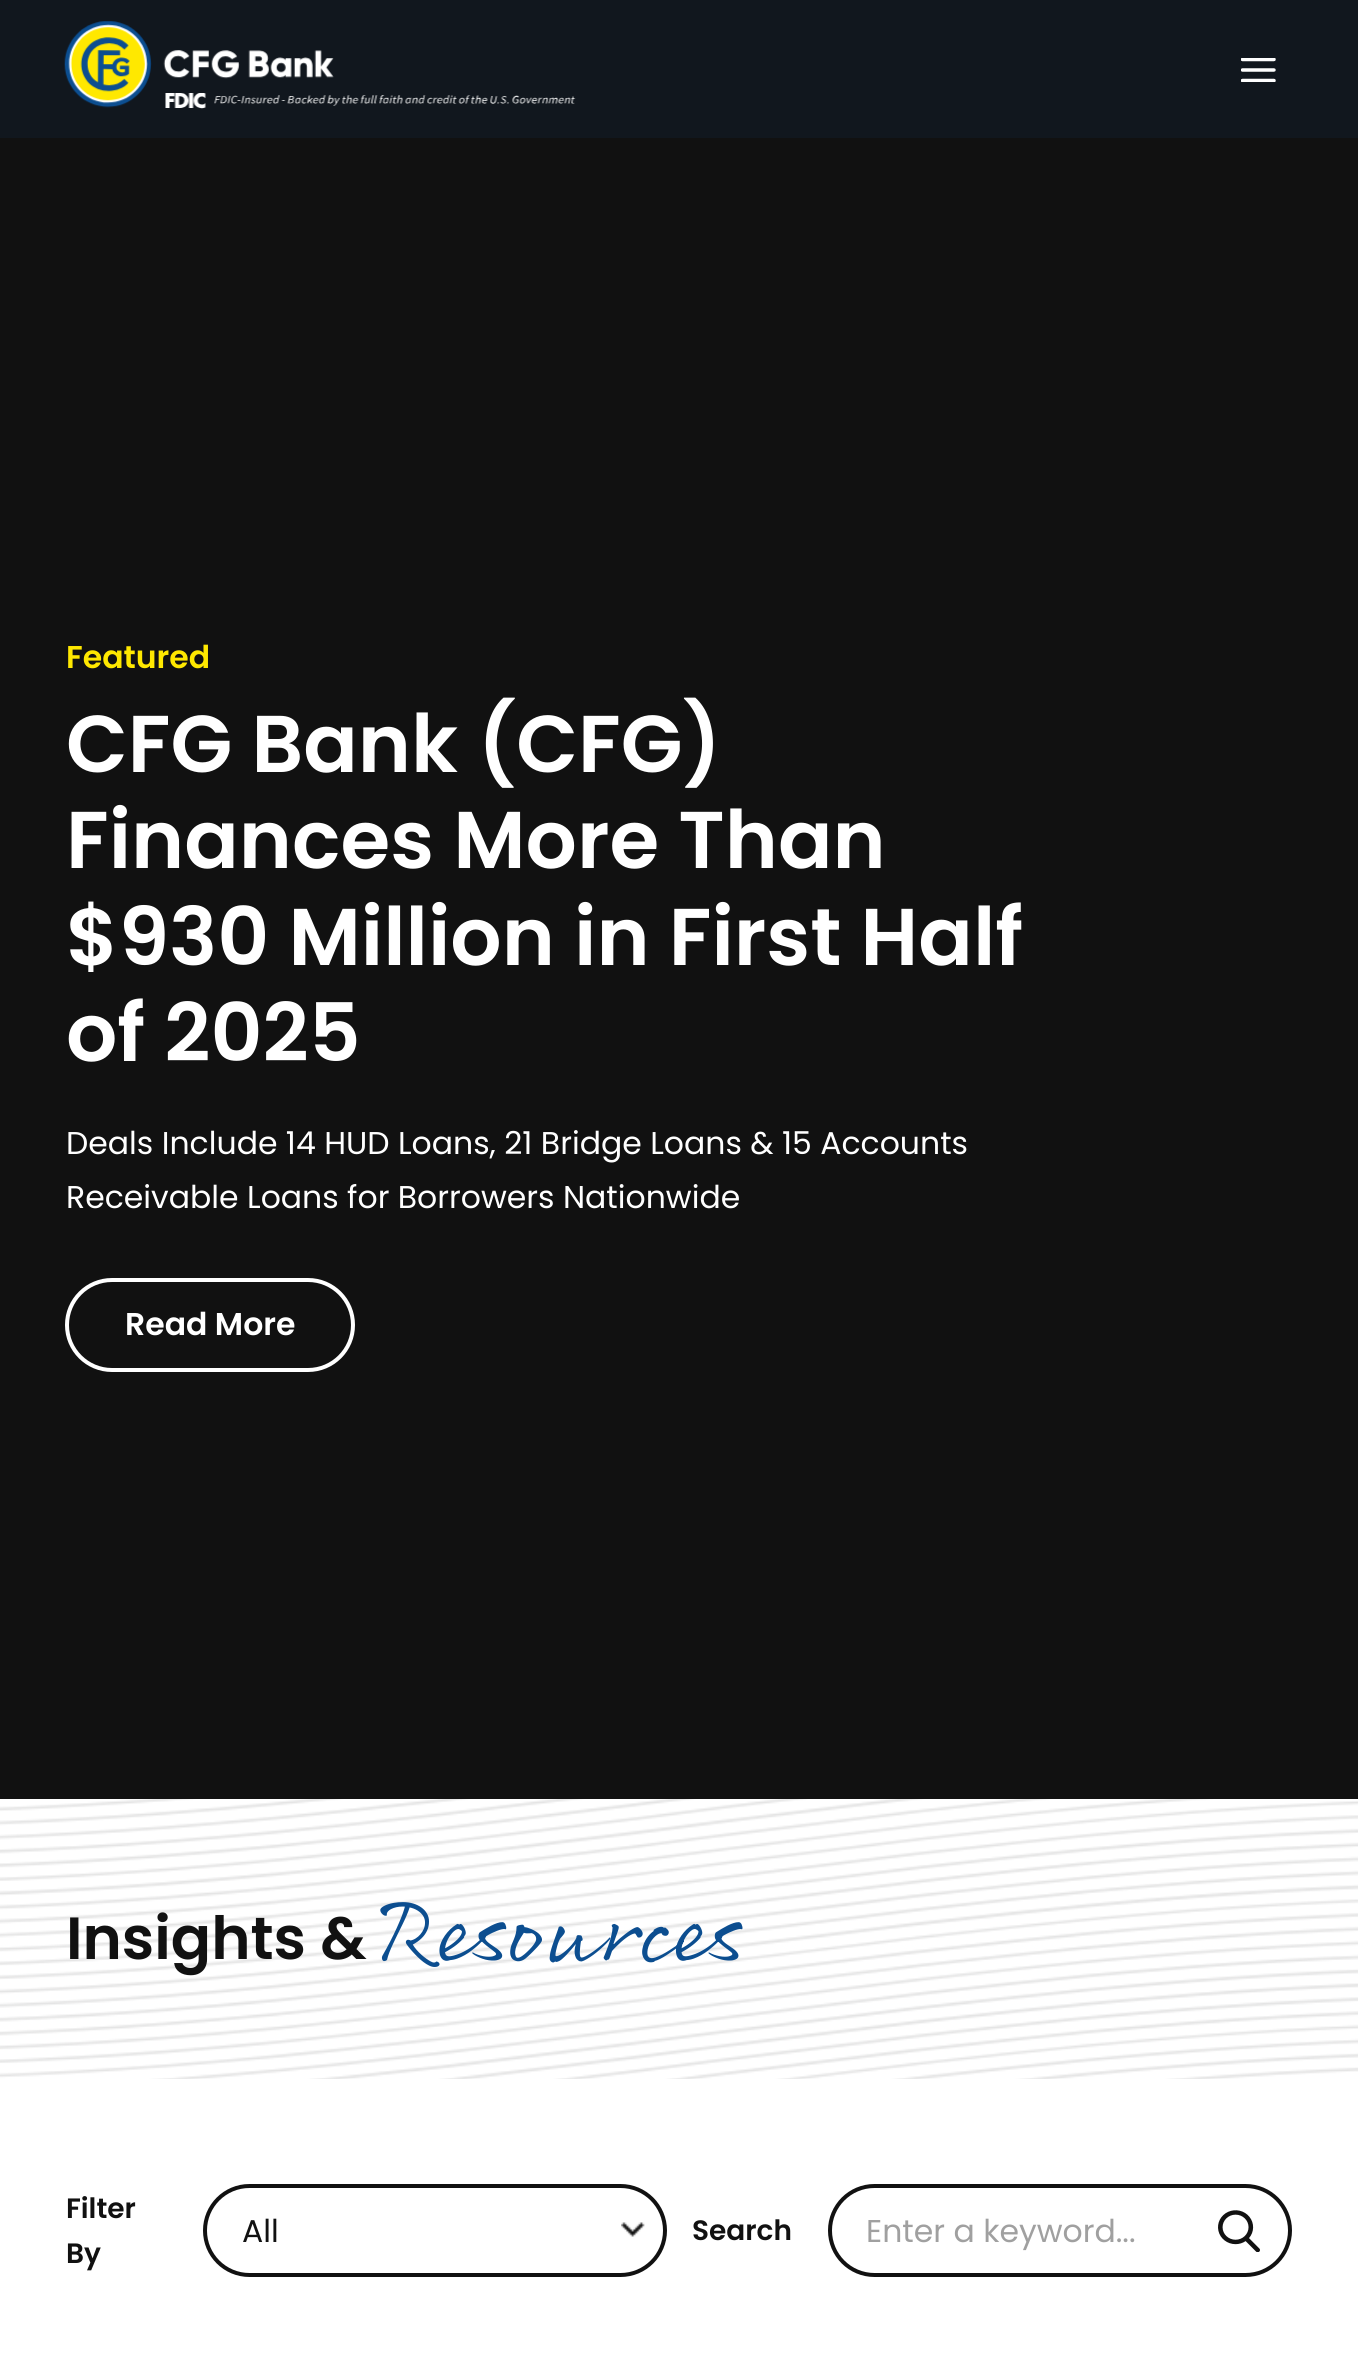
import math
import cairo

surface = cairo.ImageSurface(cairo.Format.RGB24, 1358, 2371)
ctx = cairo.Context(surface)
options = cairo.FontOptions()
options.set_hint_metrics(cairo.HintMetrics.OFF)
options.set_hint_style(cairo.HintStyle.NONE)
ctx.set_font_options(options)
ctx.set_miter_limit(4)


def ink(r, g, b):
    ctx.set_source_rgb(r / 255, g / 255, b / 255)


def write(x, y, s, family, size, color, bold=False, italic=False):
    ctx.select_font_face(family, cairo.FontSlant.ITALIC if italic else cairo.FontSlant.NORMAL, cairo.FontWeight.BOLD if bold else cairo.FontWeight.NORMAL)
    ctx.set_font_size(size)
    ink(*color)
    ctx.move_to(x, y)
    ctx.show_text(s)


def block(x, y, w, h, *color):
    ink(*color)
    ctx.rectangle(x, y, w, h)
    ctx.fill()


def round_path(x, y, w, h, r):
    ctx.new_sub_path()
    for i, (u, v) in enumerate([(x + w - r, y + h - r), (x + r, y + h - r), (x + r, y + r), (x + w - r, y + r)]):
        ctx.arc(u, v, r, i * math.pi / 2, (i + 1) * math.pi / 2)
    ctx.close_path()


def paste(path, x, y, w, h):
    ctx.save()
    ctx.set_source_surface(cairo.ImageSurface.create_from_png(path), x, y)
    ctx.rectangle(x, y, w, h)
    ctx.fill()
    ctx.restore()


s1 = dict(family="Poppins SemiBold", size=31.5, color=(255, 232, 0))
s2 = dict(family="Poppins SemiBold", size=80.5, color=(255, 255, 255))
s3 = dict(family="Poppins", size=31.5, color=(255, 255, 255))
s4 = dict(family="Poppins SemiBold", size=31.5, color=(255, 255, 255))
s5 = dict(family="Poppins SemiBold", size=59.5, color=(17, 17, 17))
s6 = dict(family="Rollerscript", size=95, color=(12, 78, 144))
s7 = dict(family="Poppins SemiBold", size=28, color=(17, 17, 17))
s8 = dict(family="Poppins", size=31.5, color=(17, 17, 17))
s9 = dict(family="Poppins", size=31.5, color=(160, 160, 160))

ink(255, 255, 255)
ctx.paint()
block(0, 0, 1358, 138, 17, 23, 30)
paste("pic1.png", 64, 21, 270, 87)
paste("pic2.png", 165, 93, 411, 16)
paste("pic3.png", 1241, 58, 35, 24)
block(0, 138, 1358, 1661, 17, 17, 17)
write(66, 668, "Featured", **s1)
write(66, 772, "CFG Bank (CFG)", **s2)
write(66, 868, "Finances More Than", **s2)
write(66, 965, "$930 Million in First Half", **s2)
write(66, 1061, "of 2025", **s2)
write(66, 1154, "Deals Include 14 HUD Loans, 21 Bridge Loans & 15 Accounts", **s3)
write(66, 1208, "Receivable Loans for Borrowers Nationwide", **s3)
round_path(67, 1280, 286, 90, 45)
ctx.set_line_width(4)
ctx.stroke()
write(125, 1335, "Read More", **s4)
paste("pic4.png", 0, 1799, 1358, 280)
write(66, 1959, "Insights &", **s5)
write(380, 1959, "Resources", **s6)
write(66, 2218, "Filter", **s7)
write(66, 2263, "By", **s7)
paste("pic5.png", 621, 2222, 24, 15)
round_path(205, 2186, 460, 89, 44.5)
ctx.stroke()
write(242, 2242, "All", **s8)
write(692, 2240, "Search", **s7)
round_path(830, 2186, 460, 89, 44.5)
ctx.stroke()
write(866, 2242, "Enter a keyword...", **s9)
paste("pic6.png", 1218, 2210, 42, 42)
surface.write_to_png("screenshot.png")
